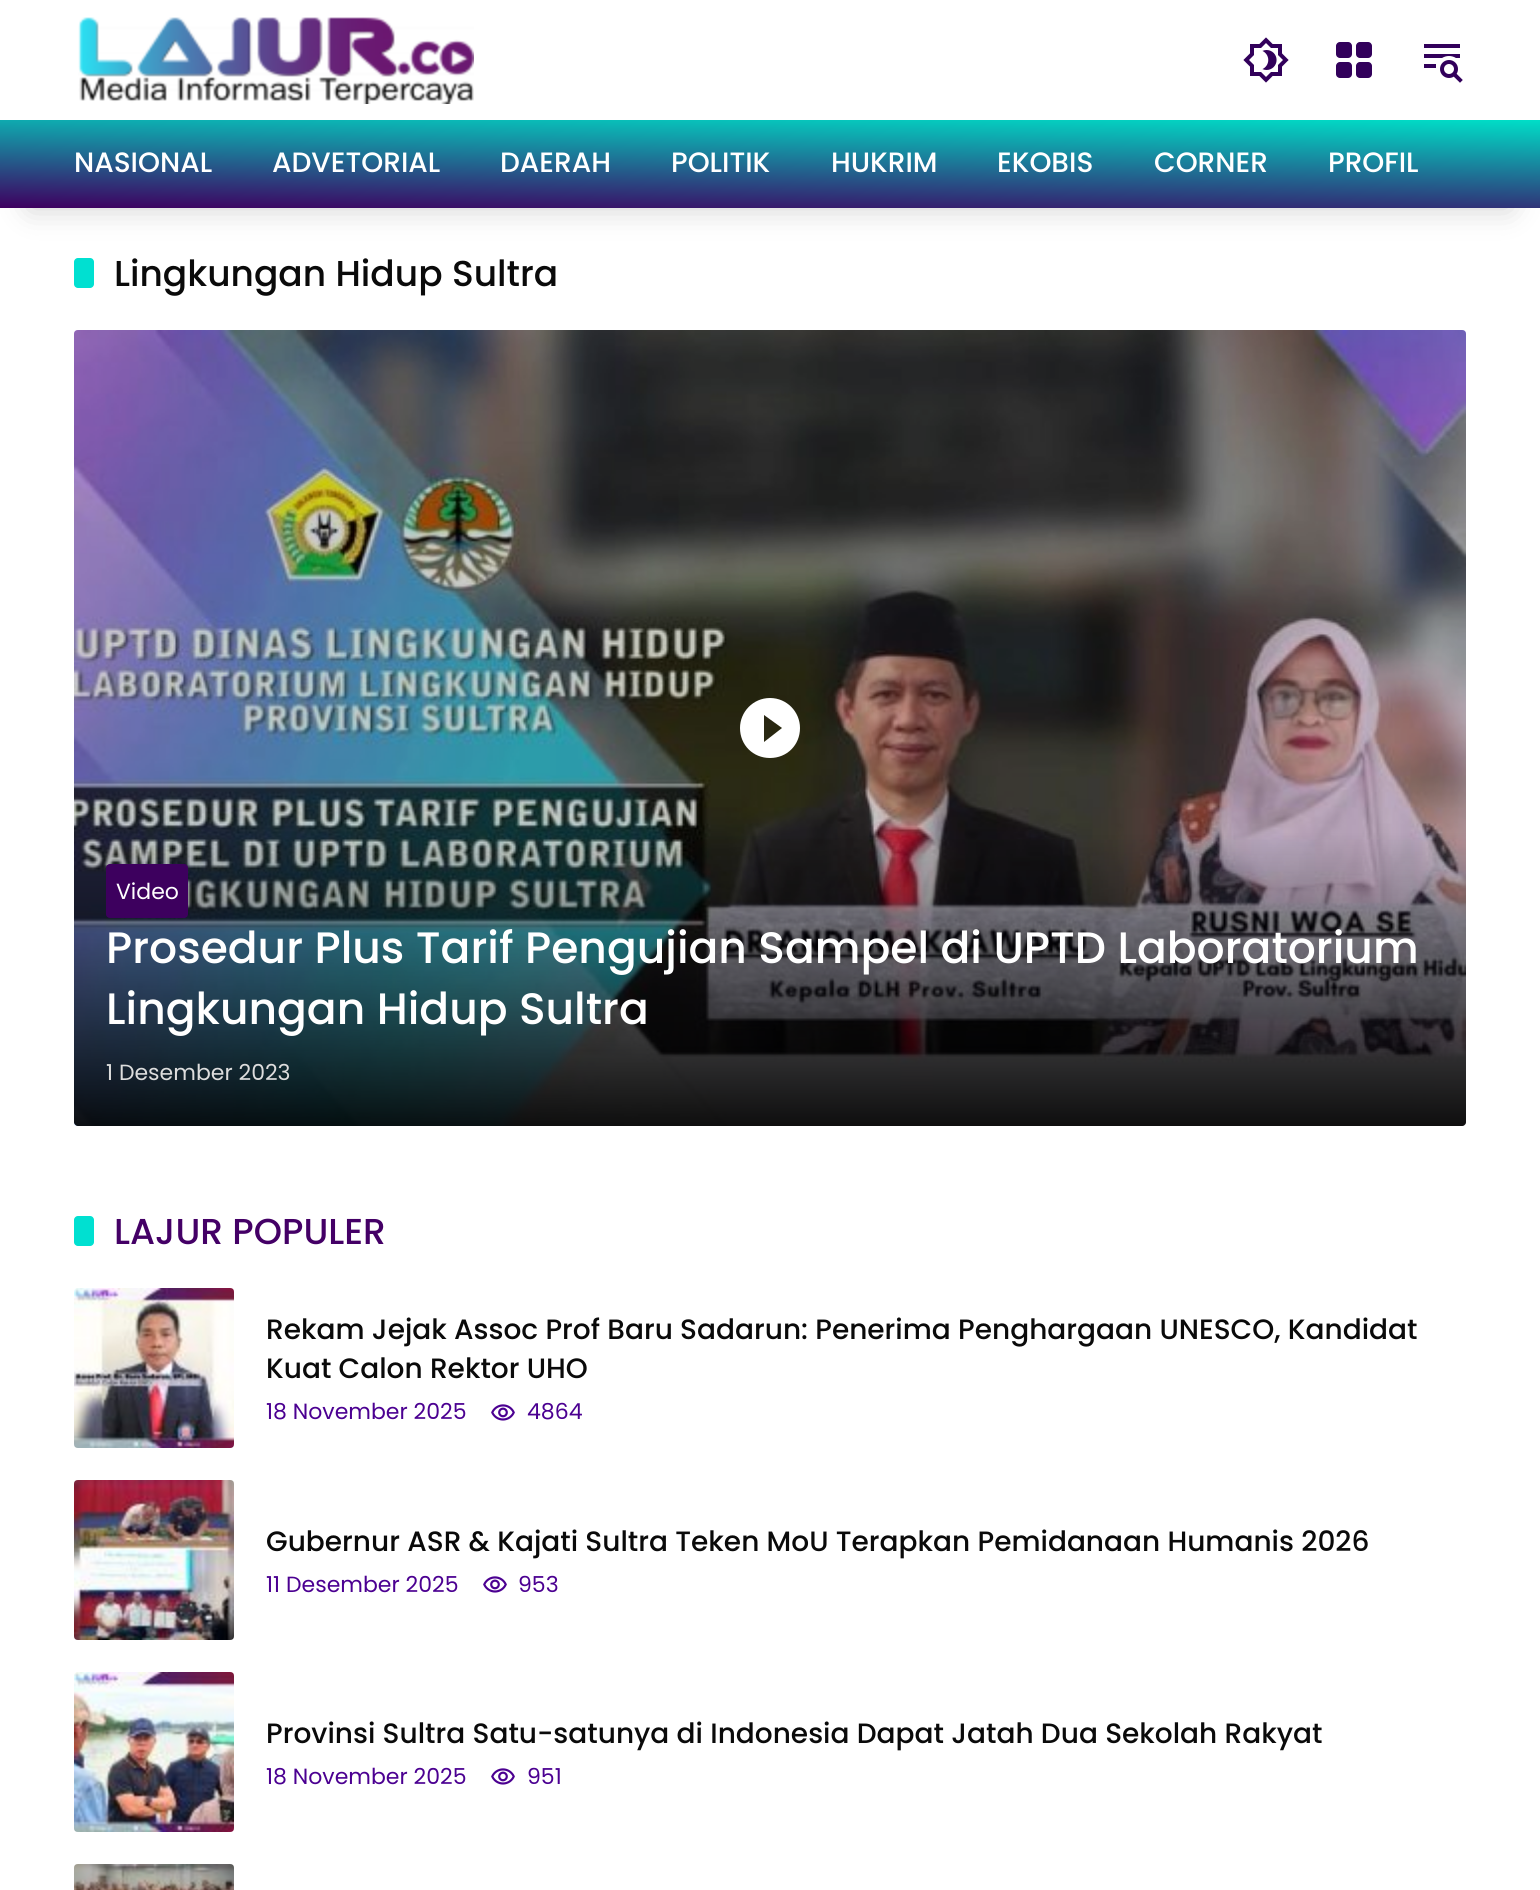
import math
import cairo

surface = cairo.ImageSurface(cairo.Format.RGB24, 1540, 1890)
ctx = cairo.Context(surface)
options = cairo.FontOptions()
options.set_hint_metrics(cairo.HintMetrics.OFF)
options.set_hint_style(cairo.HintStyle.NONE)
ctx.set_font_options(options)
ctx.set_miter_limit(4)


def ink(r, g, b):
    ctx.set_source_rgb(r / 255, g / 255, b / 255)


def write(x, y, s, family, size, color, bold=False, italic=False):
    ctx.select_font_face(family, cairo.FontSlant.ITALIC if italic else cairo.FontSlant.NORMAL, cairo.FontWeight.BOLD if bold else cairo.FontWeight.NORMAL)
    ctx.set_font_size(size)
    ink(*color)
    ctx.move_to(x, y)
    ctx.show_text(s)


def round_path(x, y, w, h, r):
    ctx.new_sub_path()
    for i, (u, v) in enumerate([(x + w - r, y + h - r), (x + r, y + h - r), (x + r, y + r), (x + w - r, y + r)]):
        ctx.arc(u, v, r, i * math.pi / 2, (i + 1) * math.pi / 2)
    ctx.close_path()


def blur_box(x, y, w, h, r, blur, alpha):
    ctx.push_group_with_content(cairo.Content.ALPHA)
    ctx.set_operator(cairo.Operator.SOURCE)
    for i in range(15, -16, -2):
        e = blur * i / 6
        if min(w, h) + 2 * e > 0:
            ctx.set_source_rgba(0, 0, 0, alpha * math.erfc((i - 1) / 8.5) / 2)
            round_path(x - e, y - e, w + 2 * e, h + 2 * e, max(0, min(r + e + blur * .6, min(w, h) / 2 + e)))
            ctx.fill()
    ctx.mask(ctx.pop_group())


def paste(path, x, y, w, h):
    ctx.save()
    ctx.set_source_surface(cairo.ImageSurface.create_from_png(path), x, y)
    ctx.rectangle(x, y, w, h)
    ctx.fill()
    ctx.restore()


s1 = dict(family="Poppins Medium", size=28, color=(255, 255, 255))
s2 = dict(family="Poppins Medium", size=36, color=(10, 10, 10))
s3 = dict(family="Poppins", size=22, color=(255, 255, 255))
s4 = dict(family="Poppins Medium", size=44, color=(255, 255, 255))
s5 = dict(family="Poppins", size=22, color=(221, 221, 221))
s6 = dict(family="Poppins Medium", size=36, color=(68, 0, 102))
s7 = dict(family="Poppins Medium", size=28, color=(10, 10, 10))
s8 = dict(family="Poppins", size=22, color=(75, 0, 145))

ink(255, 255, 255)
ctx.paint()
paste("pic1.png", 78, 17, 396, 87)
paste("pic2.png", 1243, 37, 46, 46)
paste("pic3.png", 1336, 42, 36, 36)
paste("pic4.png", 1424, 44, 39, 39)
ink(0, 0, 0)
blur_box(30, 180, 1480, 28, 0, 15, 0.2)
gradient = cairo.LinearGradient(771, 107, 769, 221)
gradient.add_color_stop_rgba(0, 0, 0.867, 0.78, 1)
gradient.add_color_stop_rgba(1, 0.243, 0, 0.376, 1)
ctx.set_source(gradient)
ctx.rectangle(0, 120, 1540, 88)
ctx.fill()
write(74, 172, "NASIONAL", **s1)
write(272, 172, "ADVETORIAL", **s1)
write(500, 172, "DAERAH", **s1)
write(671, 172, "POLITIK", **s1)
write(831, 172, "HUKRIM", **s1)
write(997, 172, "EKOBIS", **s1)
write(1154, 172, "CORNER", **s1)
write(1328, 172, "PROFIL", **s1)
ink(0, 224, 209)
round_path(74, 258, 20, 30, 4)
ctx.fill()
write(114, 286, "Lingkungan Hidup Sultra", **s2)
paste("pic5.png", 74, 330, 1392, 796)
ctx.set_source_rgba(0, 0, 0, 0.2)
round_path(74, 330, 1392, 796, 4)
ctx.fill()
ink(255, 255, 255)
ctx.new_path()
ctx.move_to(770, 698)
ctx.curve_to(753, 698, 740, 712, 740, 728)
ctx.curve_to(740, 745, 753, 758, 770, 758)
ctx.curve_to(787, 758, 800, 745, 800, 728)
ctx.curve_to(800, 712, 787, 698, 770, 698)
ctx.close_path()
ctx.move_to(764, 742)
ctx.line_to(764, 715)
ctx.line_to(782, 728)
ctx.close_path()
ctx.fill()
gradient = cairo.LinearGradient(770, 1126, 770, 832)
gradient.add_color_stop_rgba(0, 0, 0, 0, 0.9)
gradient.add_color_stop_rgba(1, 0, 0, 0, 0)
ctx.set_source(gradient)
ctx.new_path()
ctx.move_to(74, 832)
ctx.line_to(1466, 832)
ctx.line_to(1466, 1122)
ctx.curve_to(1466, 1124, 1464, 1126, 1462, 1126)
ctx.line_to(78, 1126)
ctx.curve_to(76, 1126, 74, 1124, 74, 1122)
ctx.close_path()
ctx.fill()
ink(61, 0, 94)
round_path(106, 864, 82, 54, 4)
ctx.fill()
write(116, 899, "Video", **s3)
write(106, 963, "Prosedur Plus Tarif Pengujian Sampel di UPTD Laboratorium", **s4)
write(106, 1024, "Lingkungan Hidup Sultra", **s4)
write(106, 1080, "1 Desember 2023", **s5)
ink(0, 224, 209)
round_path(74, 1216, 20, 30, 4)
ctx.fill()
write(114, 1244, "LAJUR POPULER", **s6)
paste("pic6.png", 74, 1288, 160, 160)
write(266, 1339, "Rekam Jejak Assoc Prof Baru Sadarun: Penerima Penghargaan UNESCO, Kandidat", **s7)
write(266, 1378, "Kuat Calon Rektor UHO", **s7)
write(266, 1419, "18 November 2025", **s8)
paste("pic7.png", 491, 1404, 24, 17)
write(527, 1419, "4864", **s8)
paste("pic8.png", 74, 1480, 160, 160)
write(266, 1551, "Gubernur ASR & Kajati Sultra Teken MoU Terapkan Pemidanaan Humanis 2026", **s7)
write(266, 1592, "11 Desember 2025", **s8)
paste("pic7.png", 483, 1576, 24, 17)
write(518, 1592, "953", **s8)
paste("pic9.png", 74, 1672, 160, 160)
write(266, 1743, "Provinsi Sultra Satu-satunya di Indonesia Dapat Jatah Dua Sekolah Rakyat", **s7)
write(266, 1784, "18 November 2025", **s8)
paste("pic7.png", 491, 1768, 24, 17)
write(527, 1784, "951", **s8)
paste("pic10.png", 74, 1864, 160, 26)
surface.write_to_png("screenshot.png")
